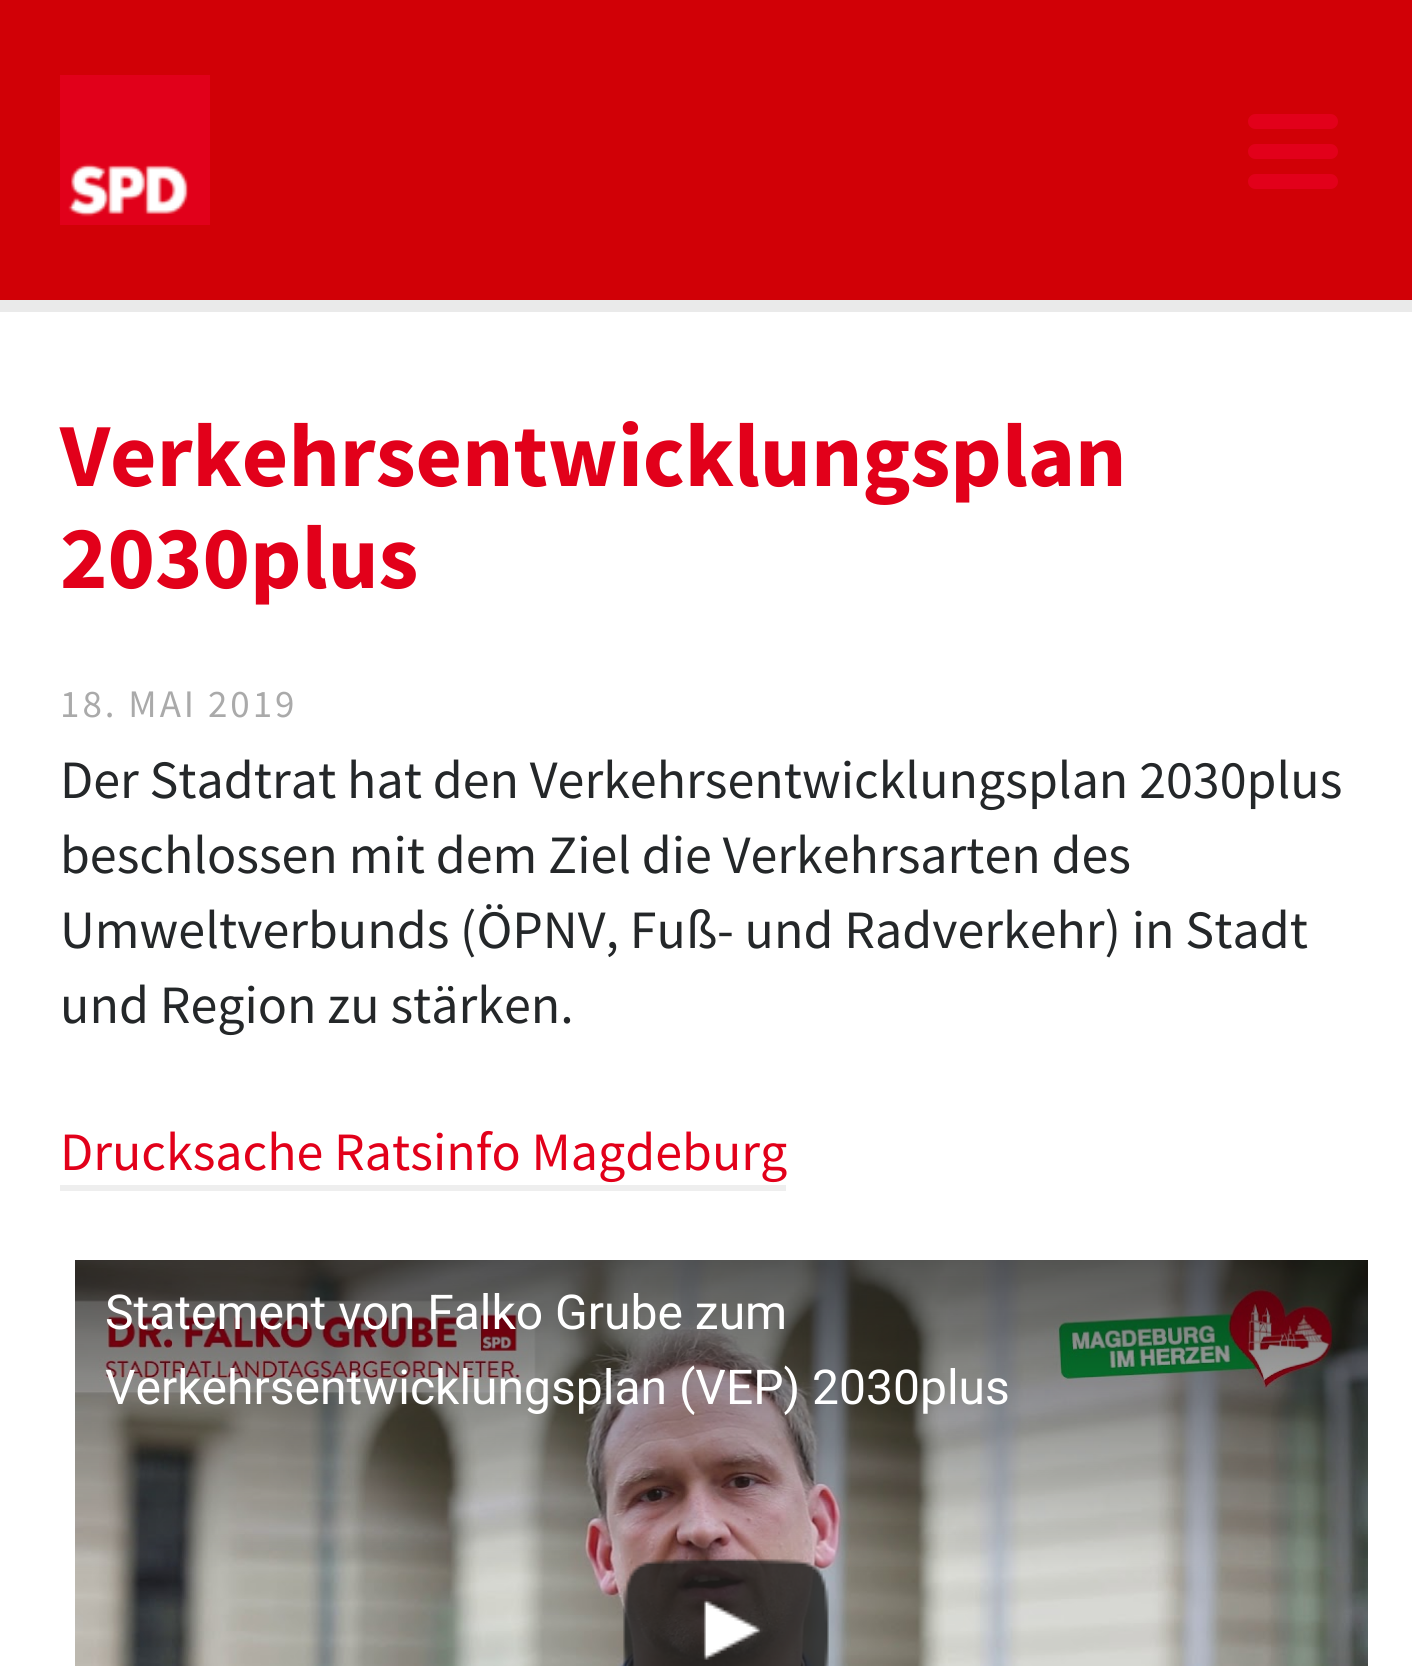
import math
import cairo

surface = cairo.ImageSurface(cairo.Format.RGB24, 1412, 1666)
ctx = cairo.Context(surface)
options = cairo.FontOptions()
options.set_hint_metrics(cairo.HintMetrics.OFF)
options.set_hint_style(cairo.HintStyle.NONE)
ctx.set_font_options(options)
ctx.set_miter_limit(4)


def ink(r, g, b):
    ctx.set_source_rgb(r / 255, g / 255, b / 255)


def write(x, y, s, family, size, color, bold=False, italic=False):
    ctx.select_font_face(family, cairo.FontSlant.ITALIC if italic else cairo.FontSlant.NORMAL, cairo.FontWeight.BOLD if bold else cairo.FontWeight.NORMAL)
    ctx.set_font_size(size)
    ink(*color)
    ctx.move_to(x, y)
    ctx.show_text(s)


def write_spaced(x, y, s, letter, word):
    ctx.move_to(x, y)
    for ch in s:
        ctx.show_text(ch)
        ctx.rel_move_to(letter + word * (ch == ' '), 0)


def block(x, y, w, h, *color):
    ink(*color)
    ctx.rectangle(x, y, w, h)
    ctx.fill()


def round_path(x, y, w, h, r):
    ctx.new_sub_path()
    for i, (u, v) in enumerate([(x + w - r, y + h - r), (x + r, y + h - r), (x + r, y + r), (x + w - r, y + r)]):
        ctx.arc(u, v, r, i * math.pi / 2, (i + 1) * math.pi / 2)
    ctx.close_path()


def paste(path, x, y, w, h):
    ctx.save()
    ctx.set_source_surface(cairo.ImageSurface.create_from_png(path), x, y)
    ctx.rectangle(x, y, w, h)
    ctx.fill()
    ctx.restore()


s1 = dict(family="Source Sans Pro", size=90, color=(226, 0, 26), bold=True)
s2 = dict(family="Source Sans Pro", size=54, color=(36, 39, 41))
s3 = dict(family="Source Sans Pro", size=54, color=(226, 0, 26))
s4 = dict(family="Roboto", size=48, color=(255, 255, 255))

ink(234, 234, 234)
ctx.paint()
block(0, 0, 1412, 300, 209, 0, 6)
paste("pic1.png", 60, 75, 150, 150)
ink(226, 0, 26)
round_path(1248, 114, 90, 15, 7.5)
ctx.fill()
round_path(1248, 144, 90, 15, 7.5)
ctx.fill()
round_path(1248, 174, 90, 15, 7.5)
ctx.fill()
block(0, 312, 1412, 1354, 255, 255, 255)
write(60, 486, "Verkehrsentwicklungsplan", **s1)
write(60, 588, "2030plus", **s1)
ctx.select_font_face("Source Sans Pro")
ctx.set_font_size(39)
ink(170, 170, 170)
write_spaced(60, 717, "18. MAI 2019", 3, 0)
write(60, 798, "Der Stadtrat hat den Verkehrsentwicklungsplan 2030plus", **s2)
write(60, 873, "beschlossen mit dem Ziel die Verkehrsarten des", **s2)
write(60, 948, "Umweltverbunds (ÖPNV, Fuß- und Radverkehr) in Stadt", **s2)
write(60, 1023, "und Region zu stärken.", **s2)
write(60, 1170, "Drucksache Ratsinfo Magdeburg", **s3)
block(60, 1185, 726, 6, 238, 238, 238)
paste("pic2.png", 75, 1260, 1293, 406)
write(105, 1329, "Statement von Falko Grube zum", **s4)
write(105, 1404, "Verkehrsentwicklungsplan (VEP) 2030plus", **s4)
paste("pic3.png", 623, 1559, 206, 107)
surface.write_to_png("screenshot.png")
